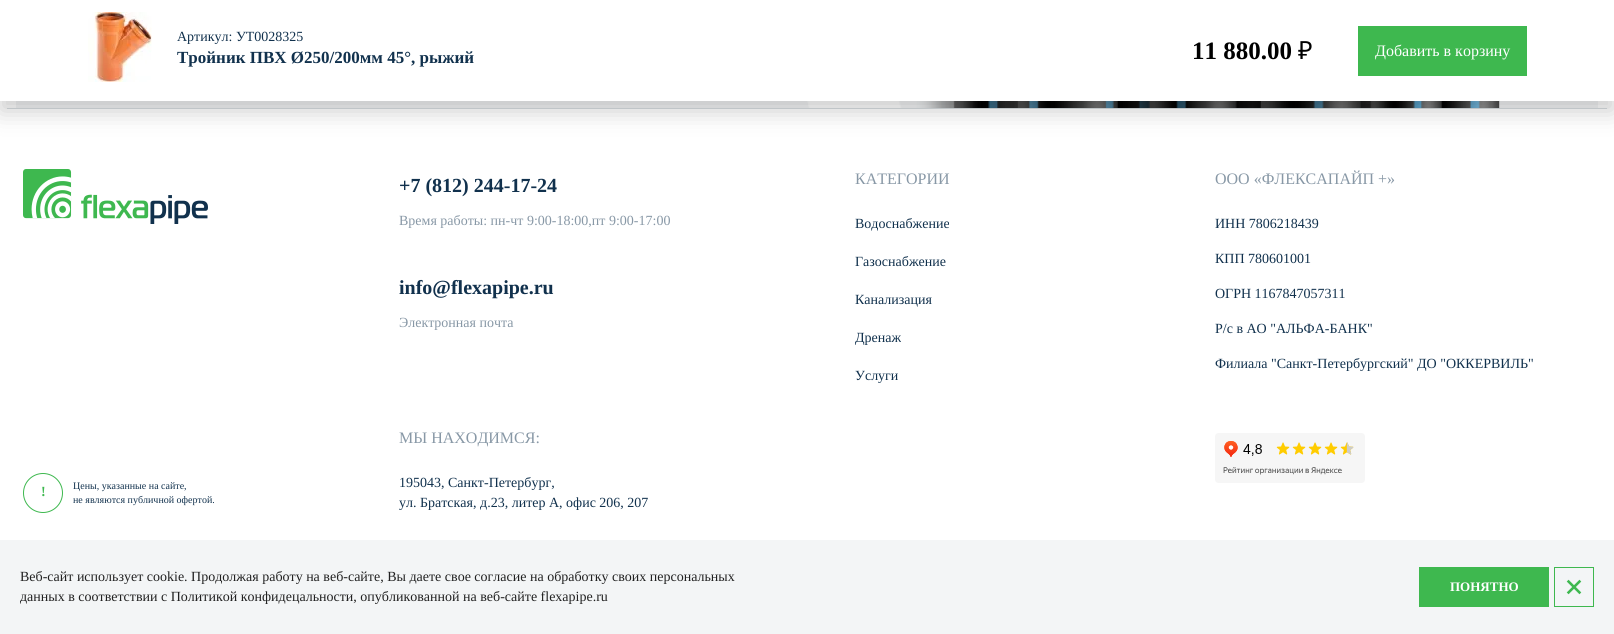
import math
import cairo

surface = cairo.ImageSurface(cairo.Format.RGB24, 1614, 634)
ctx = cairo.Context(surface)
options = cairo.FontOptions()
options.set_hint_metrics(cairo.HintMetrics.OFF)
options.set_hint_style(cairo.HintStyle.NONE)
ctx.set_font_options(options)
ctx.set_miter_limit(4)


def ink(r, g, b):
    ctx.set_source_rgb(r / 255, g / 255, b / 255)


def write(x, y, s, family, size, color, bold=False, italic=False):
    ctx.select_font_face(family, cairo.FontSlant.ITALIC if italic else cairo.FontSlant.NORMAL, cairo.FontWeight.BOLD if bold else cairo.FontWeight.NORMAL)
    ctx.set_font_size(size)
    ink(*color)
    ctx.move_to(x, y)
    ctx.show_text(s)


def block(x, y, w, h, *color):
    ink(*color)
    ctx.rectangle(x, y, w, h)
    ctx.fill()


def round_path(x, y, w, h, r):
    ctx.new_sub_path()
    for i, (u, v) in enumerate([(x + w - r, y + h - r), (x + r, y + h - r), (x + r, y + r), (x + w - r, y + r)]):
        ctx.arc(u, v, r, i * math.pi / 2, (i + 1) * math.pi / 2)
    ctx.close_path()


def blur_box(x, y, w, h, r, blur, alpha):
    ctx.push_group_with_content(cairo.Content.ALPHA)
    ctx.set_operator(cairo.Operator.SOURCE)
    for i in range(15, -16, -2):
        e = blur * i / 6
        if min(w, h) + 2 * e > 0:
            ctx.set_source_rgba(0, 0, 0, alpha * math.erfc((i - 1) / 8.5) / 2)
            round_path(x - e, y - e, w + 2 * e, h + 2 * e, max(0, min(r + e + blur * .6, min(w, h) / 2 + e)))
            ctx.fill()
    ctx.mask(ctx.pop_group())


def paste(path, x, y, w, h):
    ctx.save()
    ctx.set_source_surface(cairo.ImageSurface.create_from_png(path), x, y)
    ctx.rectangle(x, y, w, h)
    ctx.fill()
    ctx.restore()


s1 = dict(family="Liberation Serif", size=14, color=(17, 49, 77))
s2 = dict(family="Liberation Serif", size=17, color=(17, 49, 77), bold=True)
s3 = dict(family="Liberation Serif", size=25, color=(0, 0, 0), bold=True)
s4 = dict(family="Noto Sans", size=25, color=(0, 0, 0))
s5 = dict(family="Liberation Serif", size=16, color=(255, 255, 255))
s6 = dict(family="Liberation Serif", size=14, color=(62, 184, 79), bold=True)
s7 = dict(family="Liberation Serif", size=10, color=(17, 49, 77))
s8 = dict(family="Liberation Serif", size=20, color=(17, 49, 77), bold=True)
s9 = dict(family="Liberation Serif", size=14, color=(136, 152, 166))
s10 = dict(family="Liberation Serif", size=16, color=(136, 152, 166))
s11 = dict(family="Liberation Serif", size=14, color=(33, 33, 33))
s12 = dict(family="Liberation Serif", size=13, color=(255, 255, 255), bold=True)

ink(255, 255, 255)
ctx.paint()
paste("pic2.png", 16, 101, 1582, 7)
block(7, 108, 1600, 1, 220, 225, 229)
ink(0, 0, 0)
blur_box(0, 10, 1614, 101, 0, 12, 0.2)
block(0, 0, 1614, 101, 255, 255, 255)
paste("pic1.png", 88, 12, 64, 70)
write(177, 41, "Артикул: УТ0028325", **s1)
write(177, 63, "Тройник ПВХ Ø250/200мм 45°, рыжий", **s2)
write(1192, 59, "11 880.00", **s3)
write(1298, 59, "₽", **s4)
block(1358, 26, 169, 50, 62, 184, 79)
write(1375, 56, "Добавить в корзину", **s5)
paste("pic3.png", 23, 169, 185, 55)
ctx.arc(43, 493, 19.5, 0, 2 * math.pi)
ink(62, 184, 79)
ctx.set_line_width(1)
ctx.stroke()
write(41, 496, "!", **s6)
write(73, 489, "Цены, указанные на сайте,", **s7)
write(73, 503, "не являются публичной офертой.", **s7)
write(399, 192, "+7 (812) 244-17-24", **s8)
write(399, 225, "Время работы: пн-чт 9:00-18:00,пт 9:00-17:00", **s9)
write(399, 294, "info@flexapipe.ru", **s8)
write(399, 327, "Электронная почта", **s9)
write(399, 443, "МЫ НАХОДИМСЯ:", **s10)
write(399, 487, "195043, Санкт-Петербург,", **s1)
write(399, 507, "ул. Братская, д.23, литер А, офис 206, 207", **s1)
write(855, 184, "КАТЕГОРИИ", **s10)
write(855, 228, "Водоснабжение", **s1)
write(855, 266, "Газоснабжение", **s1)
write(855, 304, "Канализация", **s1)
write(855, 342, "Дренаж", **s1)
write(855, 380, "Услуги", **s1)
write(1215, 184, "ООО «ФЛЕКСАПАЙП +»", **s10)
write(1215, 228, "ИНН 7806218439", **s1)
write(1215, 263, "КПП 780601001", **s1)
write(1215, 298, "ОГРН 1167847057311", **s1)
write(1215, 333, "Р/с в АО \"АЛЬФА-БАНК\"", **s1)
write(1215, 368, "Филиала \"Санкт-Петербургский\" ДО \"ОККЕРВИЛЬ\"", **s1)
paste("pic4.png", 1215, 433, 150, 50)
block(0, 540, 1614, 94, 243, 245, 246)
write(20, 581, "Веб-сайт использует cookie. Продолжая работу на веб-сайте, Вы даете свое согласие на обработку своих персональных", **s11)
write(20, 601, "данных в соответствии с Политикой конфидецальности, опубликованной на веб-сайте flexapipe.ru", **s11)
block(1419, 567, 130, 40, 62, 184, 79)
write(1450, 591, "ПОНЯТНО", **s12)
paste("pic5.png", 1566, 579, 16, 16)
ctx.rectangle(1554.5, 567.5, 39, 39)
ink(62, 184, 79)
ctx.stroke()
surface.write_to_png("screenshot.png")
